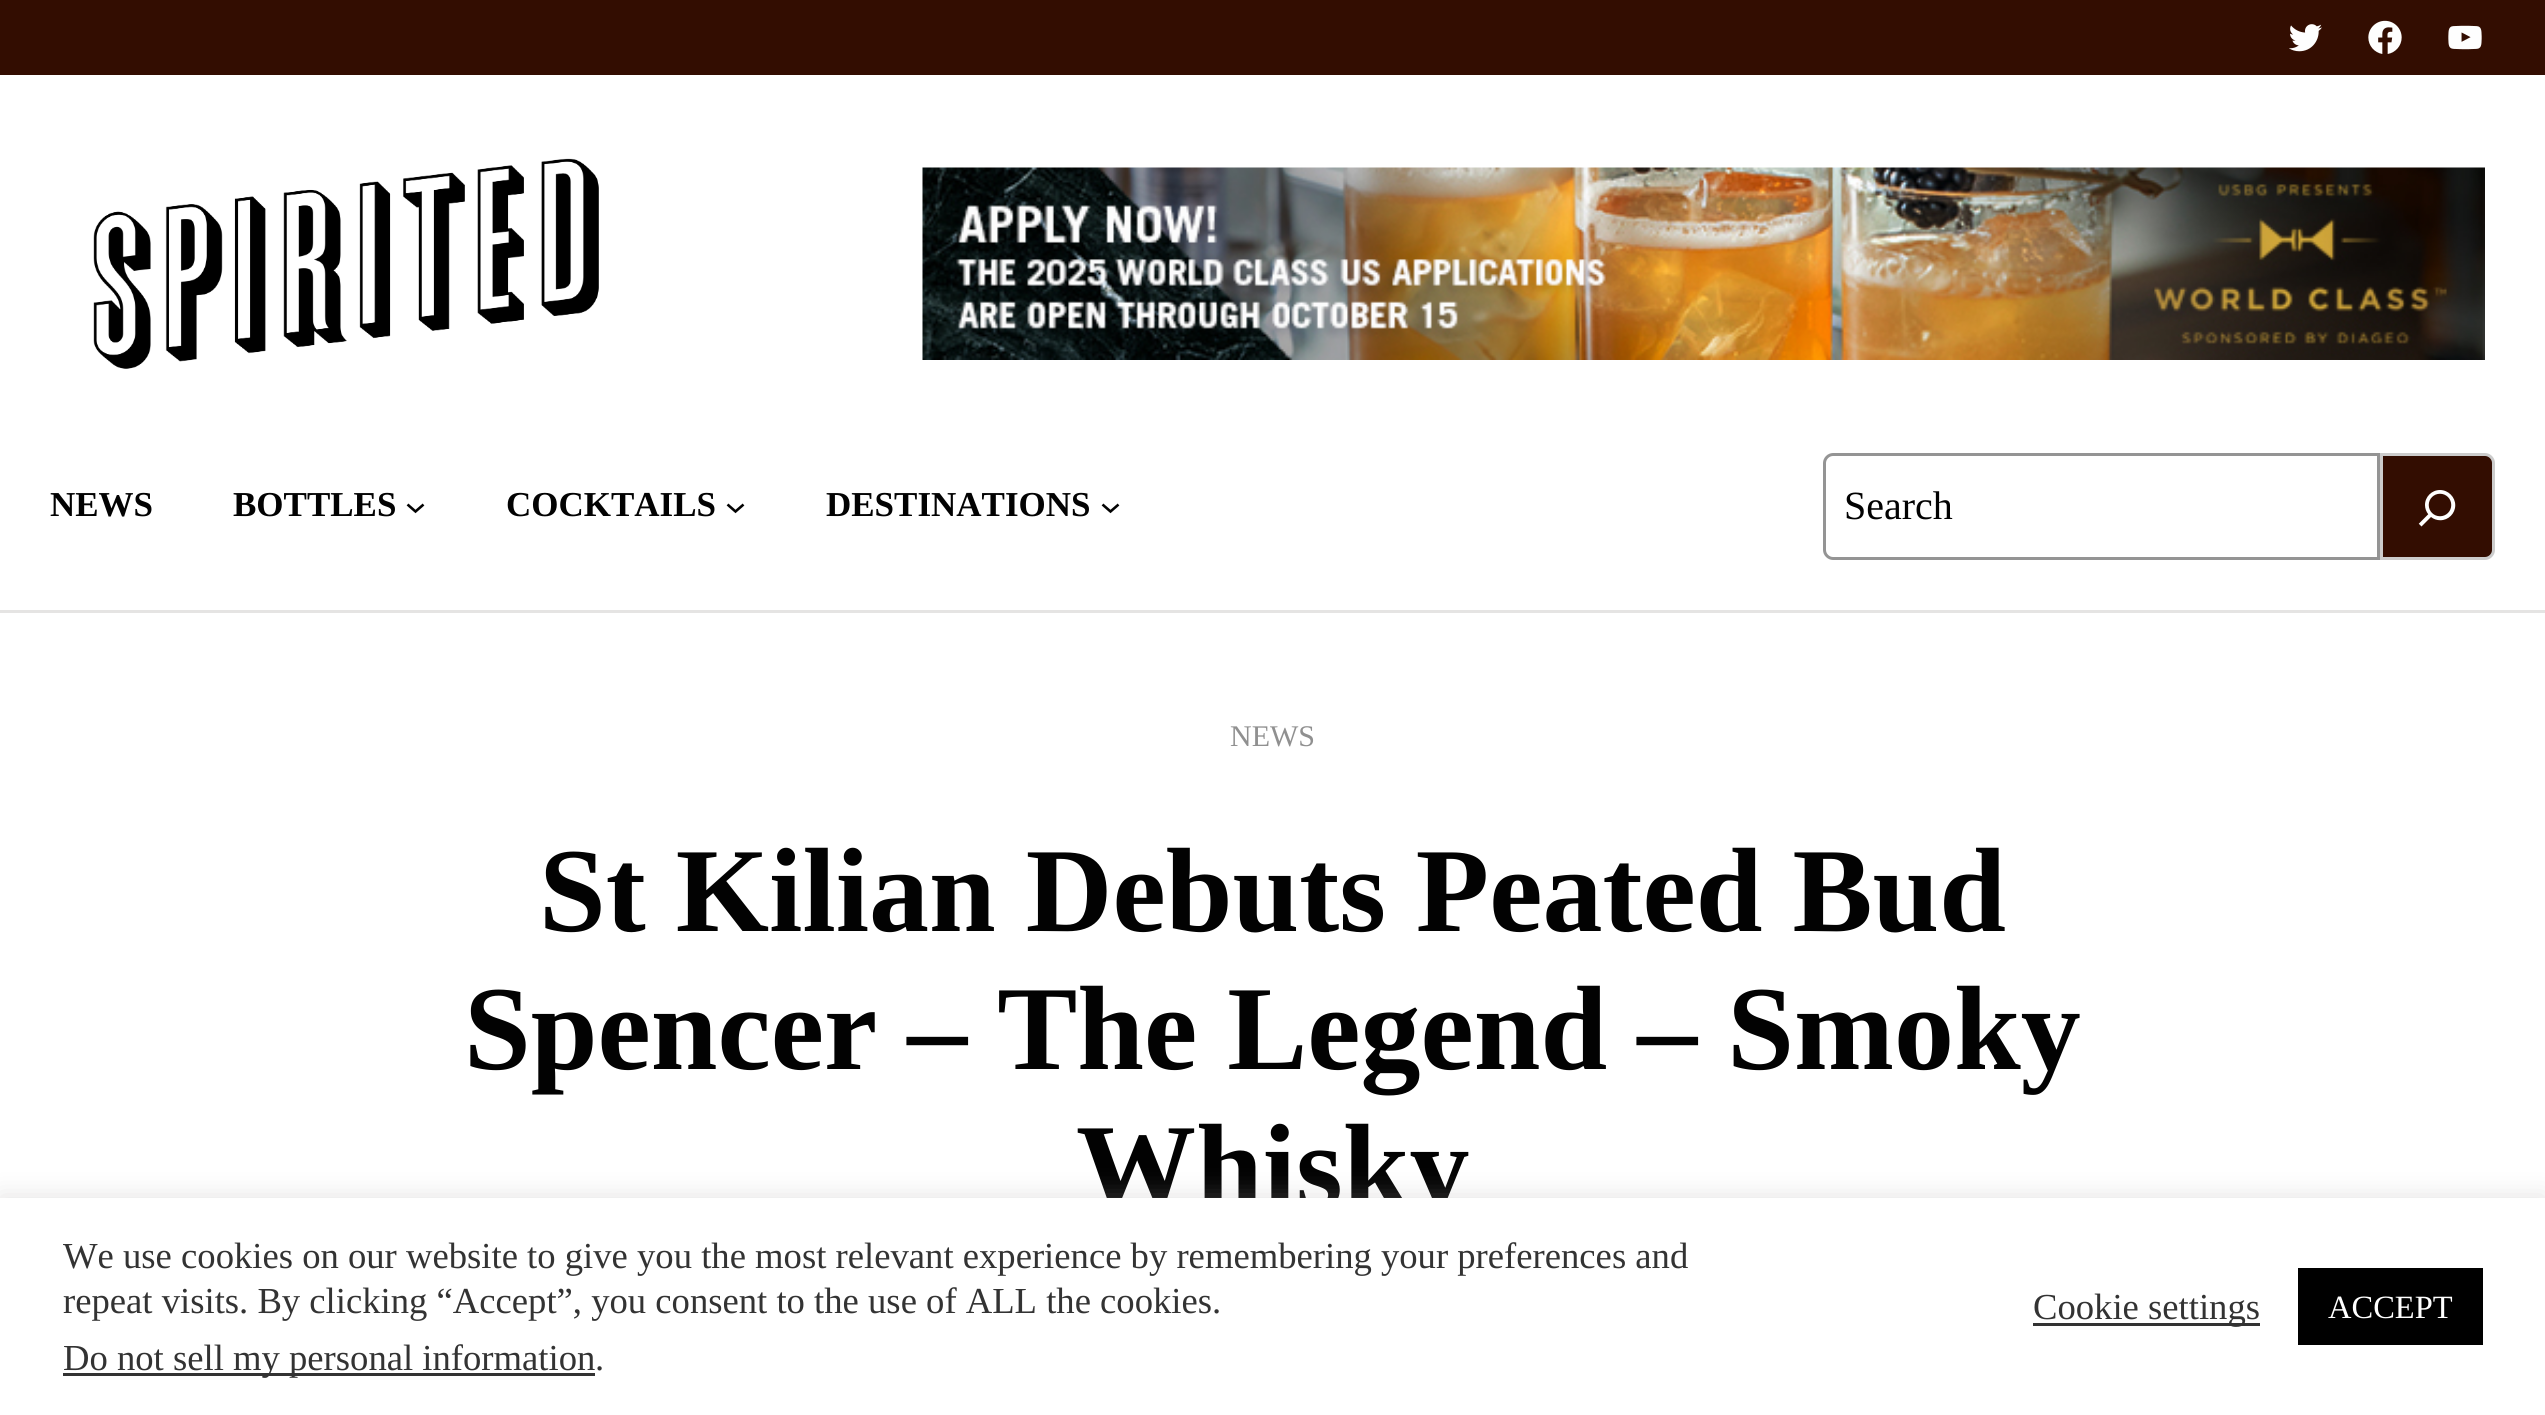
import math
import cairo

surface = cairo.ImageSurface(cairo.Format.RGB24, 2545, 1415)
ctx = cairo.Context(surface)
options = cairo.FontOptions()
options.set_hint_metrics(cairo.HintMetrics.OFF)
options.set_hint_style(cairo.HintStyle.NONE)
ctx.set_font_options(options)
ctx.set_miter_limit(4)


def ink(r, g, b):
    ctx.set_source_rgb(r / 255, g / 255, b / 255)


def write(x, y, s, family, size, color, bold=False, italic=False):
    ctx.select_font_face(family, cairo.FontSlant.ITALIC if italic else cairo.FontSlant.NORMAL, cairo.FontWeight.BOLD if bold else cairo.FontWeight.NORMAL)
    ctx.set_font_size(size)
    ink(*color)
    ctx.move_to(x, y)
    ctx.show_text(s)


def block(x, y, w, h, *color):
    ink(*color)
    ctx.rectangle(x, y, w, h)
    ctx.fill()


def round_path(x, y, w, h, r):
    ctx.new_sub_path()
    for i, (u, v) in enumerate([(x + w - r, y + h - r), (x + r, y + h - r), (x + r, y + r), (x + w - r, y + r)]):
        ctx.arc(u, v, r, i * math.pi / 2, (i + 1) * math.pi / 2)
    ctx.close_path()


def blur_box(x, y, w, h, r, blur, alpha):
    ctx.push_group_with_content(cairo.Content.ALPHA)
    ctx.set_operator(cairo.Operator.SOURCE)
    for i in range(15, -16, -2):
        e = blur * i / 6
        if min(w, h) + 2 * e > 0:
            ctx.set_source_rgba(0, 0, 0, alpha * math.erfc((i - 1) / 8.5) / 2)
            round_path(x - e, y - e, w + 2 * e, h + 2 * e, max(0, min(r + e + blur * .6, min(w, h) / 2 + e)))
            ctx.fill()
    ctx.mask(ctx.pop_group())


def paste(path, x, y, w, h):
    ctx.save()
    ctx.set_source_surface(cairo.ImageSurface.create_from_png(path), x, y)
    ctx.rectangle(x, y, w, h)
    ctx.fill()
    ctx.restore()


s1 = dict(family="Liberation Serif", size=35, color=(2, 2, 2), bold=True)
s2 = dict(family="Liberation Serif", size=40, color=(2, 2, 2))
s3 = dict(family="Liberation Serif", size=30, color=(144, 144, 144))
s4 = dict(family="Liberation Serif", size=120, color=(2, 2, 2), bold=True)
s5 = dict(family="Liberation Serif", size=36.65, color=(51, 51, 51))
s6 = dict(family="Liberation Serif", size=32.5, color=(255, 255, 255))

ink(255, 255, 255)
ctx.paint()
block(0, 0, 2545, 75, 51, 13, 1)
paste("pic1.png", 2289, 24, 33, 28)
paste("pic2.png", 2368, 20, 34, 34)
paste("pic3.png", 2448, 25, 34, 25)
paste("pic4.png", 93, 158, 506, 211)
paste("pic5.png", 922, 167, 1563, 193)
block(0, 610, 2545, 3, 229, 228, 227)
write(50, 516, "NEWS", **s1)
write(233, 516, "BOTTLES", **s1)
ctx.new_path()
ctx.move_to(407.5, 504.5)
ctx.line_to(415.5, 511.5)
ctx.line_to(423.5, 504.5)
ctx.set_line_width(2.6)
ctx.stroke()
write(506, 516, "COCKTAILS", **s1)
ctx.new_path()
ctx.move_to(727.5, 504.5)
ctx.line_to(735.5, 511.5)
ctx.line_to(743.5, 504.5)
ctx.stroke()
write(826, 516, "DESTINATIONS", **s1)
ctx.new_path()
ctx.move_to(1102.5, 504.5)
ctx.line_to(1110.5, 511.5)
ctx.line_to(1118.5, 504.5)
ctx.stroke()
ctx.new_path()
ctx.move_to(1833, 454.5)
ctx.line_to(2378.5, 454.5)
ctx.line_to(2378.5, 558.5)
ctx.line_to(1833, 558.5)
ctx.curve_to(1828.5, 558.5, 1824.5, 554.5, 1824.5, 550)
ctx.line_to(1824.5, 463)
ctx.curve_to(1824.5, 458.5, 1828.5, 454.5, 1833, 454.5)
ctx.close_path()
ink(148, 148, 148)
ctx.set_line_width(3)
ctx.stroke()
write(1844, 519, "Search", **s2)
ink(51, 13, 1)
ctx.new_path()
ctx.move_to(2381.5, 454.5)
ctx.line_to(2485, 454.5)
ctx.curve_to(2489.5, 454.5, 2493.5, 458.5, 2493.5, 463)
ctx.line_to(2493.5, 550)
ctx.curve_to(2493.5, 554.5, 2489.5, 558.5, 2485, 558.5)
ctx.line_to(2381.5, 558.5)
ctx.close_path()
ctx.fill_preserve()
ink(204, 204, 204)
ctx.stroke()
paste("pic6.png", 2418, 490, 38, 37)
write(1230, 746, "NEWS", **s3)
write(539, 931, "St Kilian Debuts Peated Bud", **s4)
write(464, 1069, "Spencer – The Legend – Smoky", **s4)
write(1076, 1207, "Whisky", **s4)
ink(172, 171, 171)
blur_box(0, 1195, 2545, 218, 0, 12.5, 0.3)
block(0, 1198, 2545, 217, 255, 255, 255)
write(63, 1268, "We use cookies on our website to give you the most relevant experience by remembering your preferences and", **s5)
write(63, 1313, "repeat visits. By clicking “Accept”, you consent to the use of ALL the cookies.", **s5)
block(63, 1373, 532, 3, 51, 51, 51)
write(63, 1370, "Do not sell my personal information", **s5)
write(595, 1370, ".", **s5)
block(2033, 1323, 227, 3, 51, 51, 51)
write(2033, 1319, "Cookie settings", **s5)
block(2298, 1268, 185, 77, 0, 0, 0)
write(2328, 1318, "ACCEPT", **s6)
surface.write_to_png("screenshot.png")
